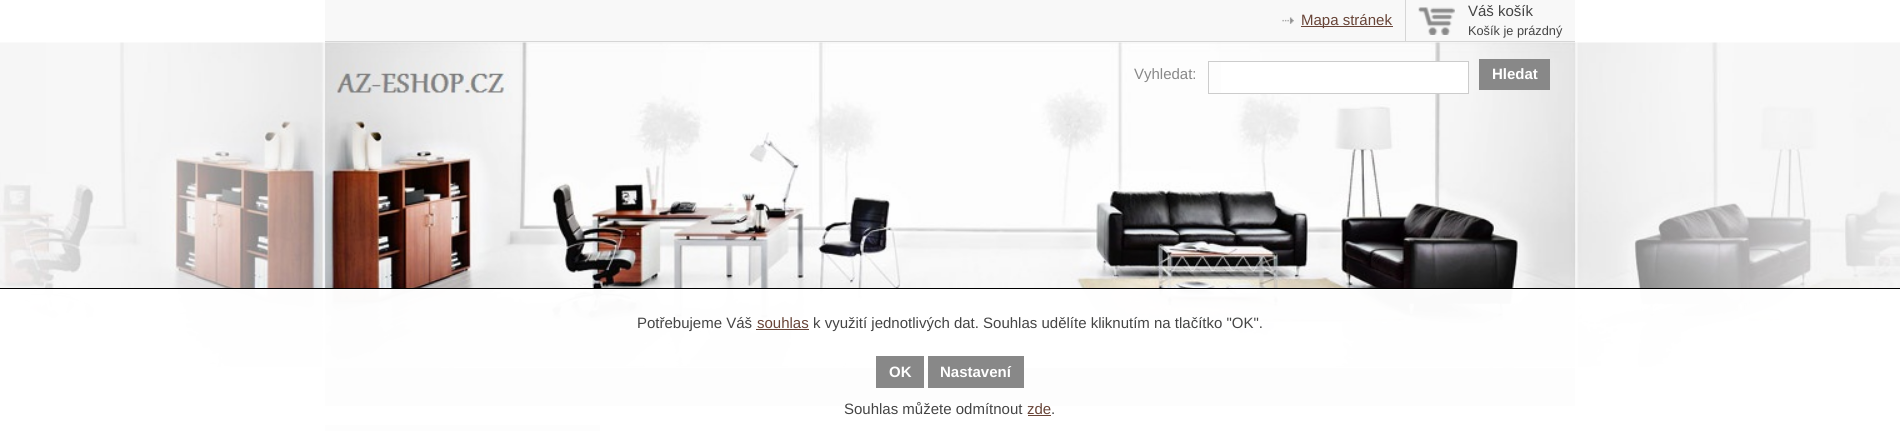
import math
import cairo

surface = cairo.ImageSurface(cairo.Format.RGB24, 1900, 431)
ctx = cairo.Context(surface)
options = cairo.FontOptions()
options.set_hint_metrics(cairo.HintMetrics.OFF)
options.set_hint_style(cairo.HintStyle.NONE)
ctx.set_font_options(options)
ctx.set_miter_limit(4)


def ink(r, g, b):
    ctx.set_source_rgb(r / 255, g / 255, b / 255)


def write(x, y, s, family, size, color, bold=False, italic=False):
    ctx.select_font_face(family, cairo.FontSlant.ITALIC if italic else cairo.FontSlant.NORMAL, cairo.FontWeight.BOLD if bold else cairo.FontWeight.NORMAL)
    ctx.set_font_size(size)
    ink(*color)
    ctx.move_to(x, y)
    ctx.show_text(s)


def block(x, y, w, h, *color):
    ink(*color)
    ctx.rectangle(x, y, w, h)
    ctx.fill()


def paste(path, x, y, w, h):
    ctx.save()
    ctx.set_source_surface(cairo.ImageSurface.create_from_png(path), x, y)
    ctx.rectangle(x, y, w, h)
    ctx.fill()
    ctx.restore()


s1 = dict(family="Liberation Sans", size=15, color=(104, 68, 55))
s2 = dict(family="Liberation Sans", size=15, color=(68, 68, 68))
s3 = dict(family="Liberation Sans", size=12.75, color=(68, 68, 68))
s4 = dict(family="Liberation Sans", size=15, color=(136, 136, 136))
s5 = dict(family="Liberation Sans", size=15, color=(255, 255, 255), bold=True)

ink(255, 255, 255)
ctx.paint()
block(325, 0, 1250, 43, 248, 248, 248)
block(325, 41, 1250, 1, 214, 214, 214)
paste("pic1.png", 1282, 17, 12, 7)
block(1301, 26, 92, 1, 104, 68, 55)
write(1301, 25, "Mapa stránek", **s1)
paste("pic2.png", 1418, 7, 37, 28)
block(1405, 0, 1, 41, 214, 214, 214)
write(1468, 16, "Váš košík", **s2)
write(1468, 35, "Košík je prázdný", **s3)
paste("pic3.png", 0, 42, 1900, 326)
write(1134, 79, "Vyhledat:", **s4)
block(1221, 62, 247, 31, 255, 255, 255)
ctx.rectangle(1208.5, 61.5, 260, 32)
ink(204, 204, 204)
ctx.set_line_width(1)
ctx.stroke()
block(1479, 59, 71, 31, 136, 136, 136)
write(1492, 79, "Hledat", **s5)
block(325, 368, 1250, 38, 136, 136, 136)
block(325, 425, 275, 6, 136, 136, 136)
ctx.set_source_rgba(1, 1, 1, 0.98)
ctx.rectangle(0, 289, 1900, 142)
ctx.fill()
block(0, 288, 1900, 1, 0, 0, 0)
write(637, 328, "Potřebujeme Váš", **s2)
write(757, 328, "souhlas", **s1)
block(756, 329, 53, 1, 104, 68, 55)
write(813, 328, "k využití jednotlivých dat. Souhlas udělíte kliknutím na tlačítko \"OK\".", **s2)
block(876, 356, 48, 32, 136, 136, 136)
write(889, 377, "OK", **s5)
block(928, 356, 96, 32, 136, 136, 136)
write(940, 377, "Nastavení", **s5)
write(844, 414, "Souhlas můžete odmítnout", **s2)
write(1027, 414, "zde", **s1)
block(1028, 415, 23, 1, 104, 68, 55)
write(1051, 414, ".", **s2)
surface.write_to_png("screenshot.png")
